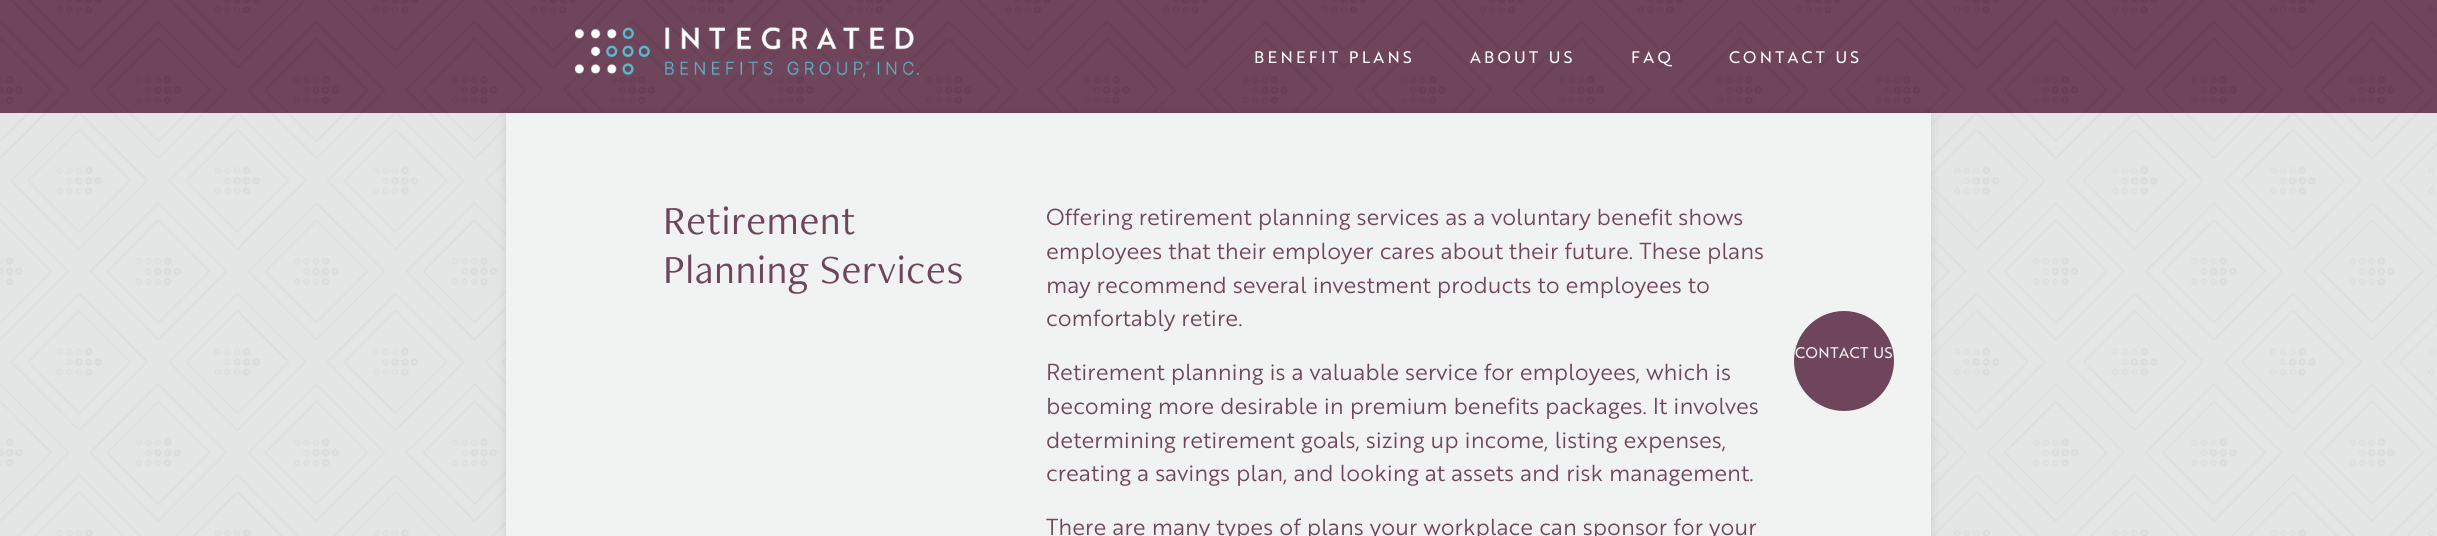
import math
import cairo

surface = cairo.ImageSurface(cairo.Format.RGB24, 2437, 536)
ctx = cairo.Context(surface)
options = cairo.FontOptions()
options.set_hint_metrics(cairo.HintMetrics.OFF)
options.set_hint_style(cairo.HintStyle.NONE)
ctx.set_font_options(options)
ctx.set_miter_limit(4)


def ink(r, g, b):
    ctx.set_source_rgb(r / 255, g / 255, b / 255)


def write(x, y, s, family, size, color, bold=False, italic=False):
    ctx.select_font_face(family, cairo.FontSlant.ITALIC if italic else cairo.FontSlant.NORMAL, cairo.FontWeight.BOLD if bold else cairo.FontWeight.NORMAL)
    ctx.set_font_size(size)
    ink(*color)
    ctx.move_to(x, y)
    ctx.show_text(s)


def write_spaced(x, y, s, letter, word):
    ctx.move_to(x, y)
    for ch in s:
        ctx.show_text(ch)
        ctx.rel_move_to(letter + word * (ch == ' '), 0)


def block(x, y, w, h, *color):
    ink(*color)
    ctx.rectangle(x, y, w, h)
    ctx.fill()


def round_path(x, y, w, h, r):
    ctx.new_sub_path()
    for i, (u, v) in enumerate([(x + w - r, y + h - r), (x + r, y + h - r), (x + r, y + r), (x + w - r, y + r)]):
        ctx.arc(u, v, r, i * math.pi / 2, (i + 1) * math.pi / 2)
    ctx.close_path()


def blur_box(x, y, w, h, r, blur, alpha):
    ctx.push_group_with_content(cairo.Content.ALPHA)
    ctx.set_operator(cairo.Operator.SOURCE)
    for i in range(15, -16, -2):
        e = blur * i / 6
        if min(w, h) + 2 * e > 0:
            ctx.set_source_rgba(0, 0, 0, alpha * math.erfc((i - 1) / 8.5) / 2)
            round_path(x - e, y - e, w + 2 * e, h + 2 * e, max(0, min(r + e + blur * .6, min(w, h) / 2 + e)))
            ctx.fill()
    ctx.mask(ctx.pop_group())


def paste(path, x, y, w, h):
    ctx.save()
    ctx.set_source_surface(cairo.ImageSurface.create_from_png(path), x, y)
    ctx.rectangle(x, y, w, h)
    ctx.fill()
    ctx.restore()


s1 = dict(family="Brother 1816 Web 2", size=22.5, color=(111, 69, 91))

ink(228, 229, 229)
ctx.paint()
paste("pic1.png", 0, 113, 2437, 423)
block(0, 0, 2437, 113, 111, 69, 91)
paste("pic2.png", 0, 0, 2437, 112)
paste("pic3.png", 575, 27, 344, 51)
ctx.select_font_face("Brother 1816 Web")
ctx.set_font_size(16.25)
ink(255, 255, 255)
write_spaced(1254, 63, "BENEFIT PLANS", 3.25, 0)
write_spaced(1470, 63, "ABOUT US", 3.25, 0)
write_spaced(1631, 63, "FAQ", 3.25, 0)
write_spaced(1729, 63, "CONTACT US", 3.25, 0)
ink(0, 0, 0)
blur_box(506, 113, 1425, 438, 0, 5, 0.1)
block(506, 113, 1425, 423, 241, 242, 242)
ctx.select_font_face("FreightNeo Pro")
ctx.set_font_size(41.25)
ink(111, 69, 91)
write_spaced(663, 234, "Retirement", 0.6, 0)
write_spaced(663, 283, "Planning Services", 0.6, 0)
write(1046, 225, "Offering retirement planning services as a voluntary benefit shows", **s1)
write(1046, 259, "employees that their employer cares about their future. These plans", **s1)
write(1046, 293, "may recommend several investment products to employees to", **s1)
write(1046, 326, "comfortably retire.", **s1)
write(1046, 380, "Retirement planning is a valuable service for employees, which is", **s1)
write(1046, 414, "becoming more desirable in premium benefits packages. It involves", **s1)
write(1046, 448, "determining retirement goals, sizing up income, listing expenses,", **s1)
write(1046, 481, "creating a savings plan, and looking at assets and risk management.", **s1)
write_spaced(1046, 535, "There are many types of plans your workplace can sponsor for your", 0, 0.1)
ctx.new_path()
ctx.arc(1844, 361, 50, 0, 2 * math.pi)
ctx.fill()
ctx.select_font_face("Brother 1816 Web")
ctx.set_font_size(15)
ink(241, 242, 242)
write_spaced(1795, 358, "CONTACT US", 0.5, 0)
surface.write_to_png("screenshot.png")
